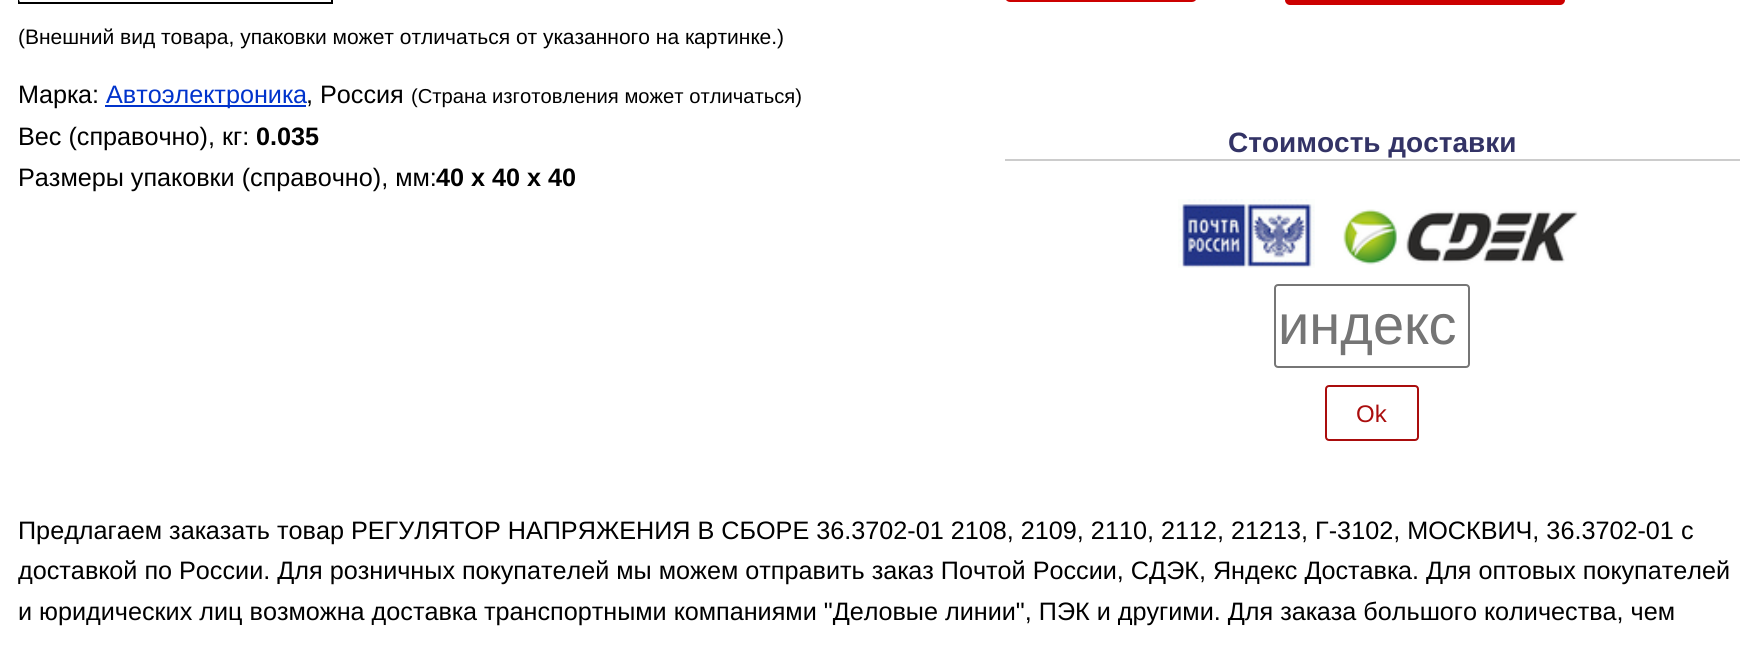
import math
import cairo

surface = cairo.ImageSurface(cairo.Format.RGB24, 1757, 648)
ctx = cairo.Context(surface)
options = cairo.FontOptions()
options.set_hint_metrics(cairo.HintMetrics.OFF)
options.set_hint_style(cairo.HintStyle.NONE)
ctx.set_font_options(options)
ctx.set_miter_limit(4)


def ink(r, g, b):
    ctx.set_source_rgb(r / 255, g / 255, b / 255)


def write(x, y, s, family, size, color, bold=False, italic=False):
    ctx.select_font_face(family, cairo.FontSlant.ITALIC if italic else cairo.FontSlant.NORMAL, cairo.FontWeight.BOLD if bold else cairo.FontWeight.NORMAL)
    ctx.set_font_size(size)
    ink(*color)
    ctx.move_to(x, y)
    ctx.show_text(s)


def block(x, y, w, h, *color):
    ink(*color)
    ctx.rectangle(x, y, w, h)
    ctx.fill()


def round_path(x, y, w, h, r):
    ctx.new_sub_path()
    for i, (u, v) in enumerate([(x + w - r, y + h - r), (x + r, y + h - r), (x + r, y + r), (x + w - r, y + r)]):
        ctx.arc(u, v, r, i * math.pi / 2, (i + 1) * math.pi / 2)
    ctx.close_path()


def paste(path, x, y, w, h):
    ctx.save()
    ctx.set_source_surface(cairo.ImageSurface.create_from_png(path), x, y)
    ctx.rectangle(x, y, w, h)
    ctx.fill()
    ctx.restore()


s1 = dict(family="Liberation Sans", size=21, color=(0, 0, 0))
s2 = dict(family="Liberation Sans", size=25.2, color=(0, 0, 0))
s3 = dict(family="Liberation Sans", size=25.2, color=(0, 51, 204))
s4 = dict(family="Liberation Sans", size=20.2, color=(0, 0, 0))
s5 = dict(family="Liberation Sans", size=25.2, color=(0, 0, 0), bold=True)
s6 = dict(family="Liberation Sans", size=28, color=(51, 51, 102), bold=True)
s7 = dict(family="Liberation Sans", size=56, color=(117, 117, 117))
s8 = dict(family="Liberation Sans", size=24, color=(170, 13, 13))

ink(255, 255, 255)
ctx.paint()
ctx.rectangle(19, -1, 313, 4)
ink(0, 0, 0)
ctx.stroke()
paste("pic1.png", 19, 0, 1, 2)
write(18, 44, "(Внешний вид товара, упаковки может отличаться от указанного на картинке.)", **s1)
write(18, 103, "Марка:", **s2)
block(105, 105, 201, 2, 0, 51, 204)
write(106, 103, "Автоэлектроника", **s3)
write(306, 103, ", Россия", **s2)
write(411, 103, "(Страна изготовления может отличаться)", **s4)
write(18, 145, "Вес (справочно), кг:", **s2)
write(256, 145, "0.035", **s5)
write(18, 186, "Размеры упаковки (справочно), мм:", **s2)
write(436, 186, "40 x 40 x 40", **s5)
round_path(1007, -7, 188, 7, 3)
ink(204, 0, 0)
ctx.set_line_width(4)
ctx.stroke()
round_path(1285, -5, 280, 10, 5)
ctx.fill()
block(1005, 159, 735, 2, 204, 204, 204)
write(1228, 152, "Стоимость доставки", **s6)
paste("pic2.png", 1178, 199, 137, 69)
paste("pic3.png", 1343, 209, 235, 56)
round_path(1275, 285, 194, 82, 3)
ink(118, 118, 118)
ctx.set_line_width(2)
ctx.stroke()
write(1278, 344, "индекс", **s7)
round_path(1326, 386, 92, 54, 3)
ink(170, 13, 13)
ctx.stroke()
write(1356, 422, "Ok", **s8)
write(18, 539, "Предлагаем заказать товар РЕГУЛЯТОР НАПРЯЖЕНИЯ В СБОРЕ 36.3702-01 2108, 2109, 2110, 2112, 21213, Г-3102, МОСКВИЧ, 36.3702-01 с", **s2)
ctx.save()
ctx.rectangle(18, 0, 1722, 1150)
ctx.clip()
write(18, 579, "доставкой по России. Для розничных покупателей мы можем отправить заказ Почтой России, СДЭК, Яндекс Доставка. Для оптовых покупателей", **s2)
ctx.restore()
write(18, 620, "и юридических лиц возможна доставка транспортными компаниями \"Деловые линии\", ПЭК и другими. Для заказа большого количества, чем", **s2)
surface.write_to_png("screenshot.png")
